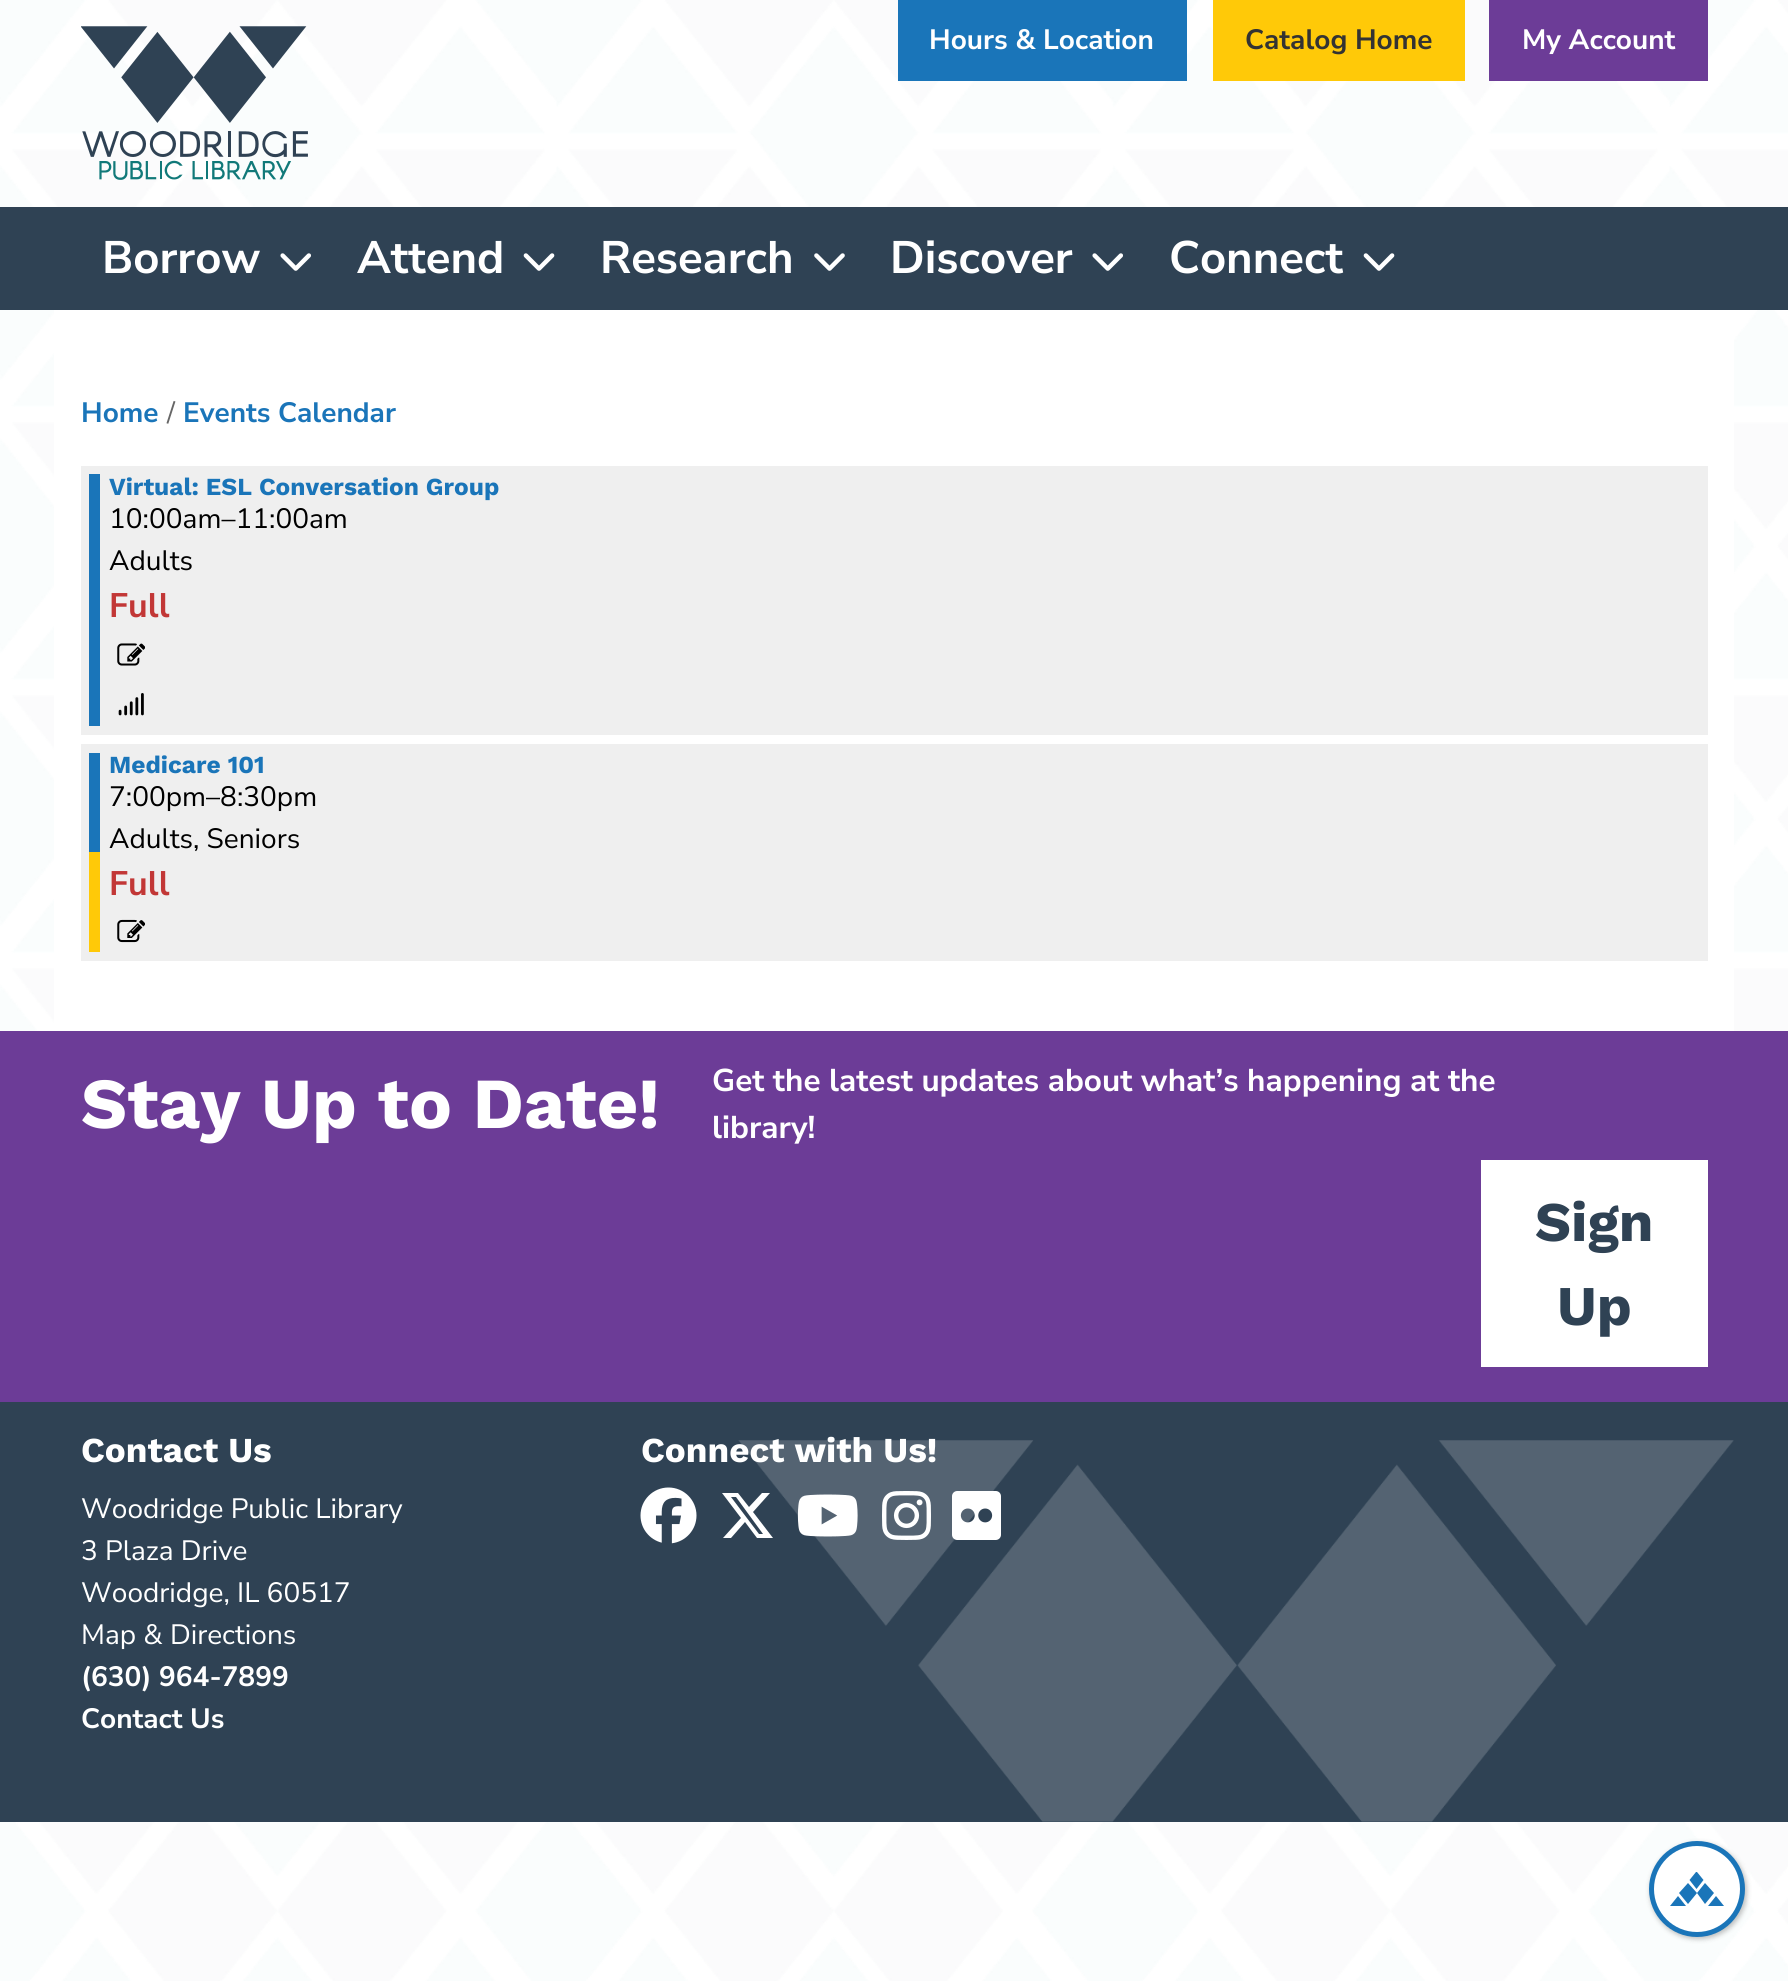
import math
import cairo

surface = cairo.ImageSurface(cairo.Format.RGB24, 1788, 1981)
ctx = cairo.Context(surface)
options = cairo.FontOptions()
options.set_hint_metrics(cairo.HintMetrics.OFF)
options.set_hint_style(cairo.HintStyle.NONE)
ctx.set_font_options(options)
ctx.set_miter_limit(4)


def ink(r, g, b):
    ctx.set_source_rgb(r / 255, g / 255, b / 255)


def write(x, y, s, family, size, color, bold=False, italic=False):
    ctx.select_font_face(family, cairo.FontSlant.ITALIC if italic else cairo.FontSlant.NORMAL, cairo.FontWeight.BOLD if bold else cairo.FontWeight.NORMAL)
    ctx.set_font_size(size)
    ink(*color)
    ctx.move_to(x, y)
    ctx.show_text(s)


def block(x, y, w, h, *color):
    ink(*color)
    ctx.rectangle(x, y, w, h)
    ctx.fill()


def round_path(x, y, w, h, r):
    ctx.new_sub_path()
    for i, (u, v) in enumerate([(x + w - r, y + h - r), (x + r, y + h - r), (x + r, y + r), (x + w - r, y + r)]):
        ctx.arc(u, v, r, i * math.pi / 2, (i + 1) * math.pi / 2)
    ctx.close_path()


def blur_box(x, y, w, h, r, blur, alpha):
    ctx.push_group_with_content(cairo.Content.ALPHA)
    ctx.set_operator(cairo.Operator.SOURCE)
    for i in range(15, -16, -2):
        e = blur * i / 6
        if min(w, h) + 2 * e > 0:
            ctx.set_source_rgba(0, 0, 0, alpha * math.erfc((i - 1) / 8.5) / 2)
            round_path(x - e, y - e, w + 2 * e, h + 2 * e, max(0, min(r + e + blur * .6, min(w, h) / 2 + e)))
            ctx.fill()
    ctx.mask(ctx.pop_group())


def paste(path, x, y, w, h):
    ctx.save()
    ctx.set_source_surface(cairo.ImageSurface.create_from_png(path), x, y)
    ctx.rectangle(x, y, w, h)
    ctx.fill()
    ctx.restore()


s1 = dict(family="Nunito Sans", size=28, color=(255, 255, 255), bold=True)
s2 = dict(family="Nunito Sans", size=28, color=(51, 51, 51), bold=True)
s3 = dict(family="Nunito Sans", size=45.5, color=(255, 255, 255), bold=True)
s4 = dict(family="Nunito Sans", size=28, color=(26, 117, 185), bold=True)
s5 = dict(family="Nunito Sans", size=28, color=(102, 102, 102))
s6 = dict(family="Work Sans", size=24.5, color=(26, 117, 185), bold=True)
s7 = dict(family="Nunito Sans", size=28, color=(0, 0, 0))
s8 = dict(family="Nunito Sans", size=34, color=(194, 55, 54), bold=True)
s9 = dict(family="Work Sans", size=71.75, color=(255, 255, 255), bold=True)
s10 = dict(family="Nunito Sans", size=31.5, color=(255, 255, 255), bold=True)
s11 = dict(family="Work Sans", size=56, color=(47, 66, 84), bold=True)
s12 = dict(family="Work Sans", size=35, color=(255, 255, 255), bold=True)
s13 = dict(family="Nunito Sans", size=28, color=(255, 255, 255))

ink(255, 255, 255)
ctx.paint()
paste("pic1.png", 0, 0, 1788, 1981)
paste("pic2.png", 81, 26, 227, 154)
block(898, 0, 289, 81, 26, 117, 185)
write(929, 49, "Hours & Location", **s1)
block(1213, 0, 252, 81, 255, 201, 8)
write(1245, 49, "Catalog Home", **s2)
block(1489, 0, 219, 81, 108, 60, 151)
write(1522, 49, "My Account", **s1)
block(0, 207, 1788, 103, 47, 66, 84)
write(102, 273, "Borrow", **s3)
paste("pic3.png", 280, 253, 31, 18)
write(357, 273, "Attend", **s3)
paste("pic4.png", 523, 253, 32, 18)
write(600, 273, "Research", **s3)
paste("pic5.png", 814, 253, 31, 18)
write(890, 273, "Discover", **s3)
paste("pic3.png", 1092, 253, 31, 18)
write(1169, 273, "Connect", **s3)
paste("pic4.png", 1363, 253, 32, 18)
block(54, 310, 1680, 721, 255, 255, 255)
write(81, 422, "Home", **s4)
write(167, 422, "/", **s5)
write(183, 422, "Events Calendar", **s4)
block(81, 466, 1627, 269, 239, 239, 239)
block(89, 474, 11, 252, 26, 117, 185)
write(109, 495, "Virtual: ESL Conversation Group", **s6)
write(109, 528, "10:00am–11:00am", **s7)
write(109, 570, "Adults", **s7)
write(109, 617, "Full", **s8)
paste("pic6.png", 117, 643, 28, 23)
paste("pic7.png", 118, 693, 26, 23)
block(81, 744, 1627, 217, 239, 239, 239)
block(89, 753, 11, 99, 26, 117, 185)
block(89, 852, 11, 100, 255, 201, 8)
write(109, 773, "Medicare 101", **s6)
write(109, 806, "7:00pm–8:30pm", **s7)
write(109, 848, "Adults, Seniors", **s7)
write(109, 895, "Full", **s8)
paste("pic8.png", 117, 919, 28, 24)
block(0, 1031, 1788, 371, 108, 60, 151)
write(81, 1128, "Stay Up to Date!", **s9)
write(712, 1091, "Get the latest updates about what’s happening at the", **s10)
write(712, 1138, "library!", **s10)
block(1481, 1160, 227, 207, 255, 255, 255)
write(1535, 1241, "Sign", **s11)
write(1557, 1325, "Up", **s11)
block(0, 1402, 1788, 420, 47, 66, 84)
paste("pic9.png", 738, 1440, 996, 382)
write(81, 1462, "Contact Us", **s12)
write(81, 1518, "Woodridge Public Library", **s13)
write(81, 1560, "3 Plaza Drive", **s13)
write(81, 1602, "Woodridge, IL 60517", **s13)
write(81, 1644, "Map & Directions", **s13)
write(81, 1686, "(630) 964-7899", **s1)
write(81, 1728, "Contact Us", **s1)
write(641, 1462, "Connect with Us!", **s12)
paste("pic10.png", 640, 1487, 57, 57)
ctx.new_path()
ctx.move_to(762, 1493)
ctx.line_to(770, 1493)
ctx.line_to(753, 1512)
ctx.line_to(773, 1538)
ctx.line_to(757, 1538)
ctx.line_to(745, 1522)
ctx.line_to(731, 1538)
ctx.line_to(723, 1538)
ctx.line_to(741, 1518)
ctx.line_to(722, 1493)
ctx.line_to(738, 1493)
ctx.line_to(749, 1507)
ctx.close_path()
ctx.move_to(759, 1534)
ctx.line_to(763, 1534)
ctx.line_to(736, 1497)
ctx.line_to(731, 1497)
ctx.close_path()
ctx.fill()
paste("pic11.png", 797, 1494, 61, 43)
paste("pic12.png", 882, 1491, 49, 49)
paste("pic13.png", 952, 1491, 49, 49)
ink(0, 0, 0)
blur_box(1650, 1843, 97, 96, 48, 2.5, 0.25)
ink(255, 255, 255)
ctx.arc(1697, 1889, 45.5, 0, 2 * math.pi)
ctx.fill_preserve()
ink(26, 117, 185)
ctx.set_line_width(5)
ctx.stroke()
ctx.set_fill_rule(cairo.FillRule.EVEN_ODD)
ctx.new_path()
ctx.move_to(1724, 1906)
ctx.line_to(1708, 1906)
ctx.line_to(1716, 1896)
ctx.close_path()
ctx.move_to(1688, 1883)
ctx.line_to(1679, 1893)
ctx.line_to(1688, 1904)
ctx.line_to(1697, 1893)
ctx.close_path()
ctx.move_to(1697, 1893)
ctx.line_to(1705, 1883)
ctx.line_to(1714, 1893)
ctx.line_to(1705, 1904)
ctx.close_path()
ctx.move_to(1686, 1906)
ctx.line_to(1670, 1906)
ctx.line_to(1678, 1896)
ctx.close_path()
ctx.fill()
ctx.set_fill_rule(cairo.FillRule.WINDING)
ctx.new_path()
ctx.move_to(1697, 1872)
ctx.line_to(1703.5, 1880)
ctx.line_to(1696.5, 1889)
ctx.line_to(1689.5, 1880)
ctx.line_to(1696, 1872)
ctx.close_path()
ctx.fill()
surface.write_to_png("screenshot.png")
